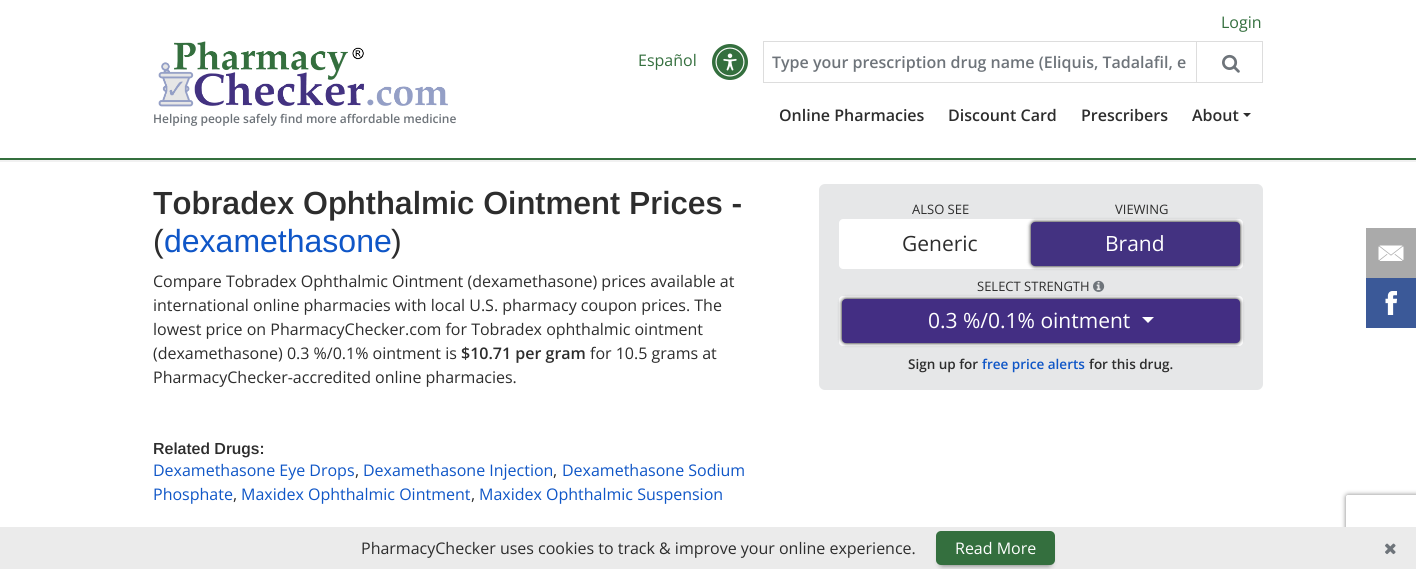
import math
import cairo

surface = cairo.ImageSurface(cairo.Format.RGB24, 1416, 569)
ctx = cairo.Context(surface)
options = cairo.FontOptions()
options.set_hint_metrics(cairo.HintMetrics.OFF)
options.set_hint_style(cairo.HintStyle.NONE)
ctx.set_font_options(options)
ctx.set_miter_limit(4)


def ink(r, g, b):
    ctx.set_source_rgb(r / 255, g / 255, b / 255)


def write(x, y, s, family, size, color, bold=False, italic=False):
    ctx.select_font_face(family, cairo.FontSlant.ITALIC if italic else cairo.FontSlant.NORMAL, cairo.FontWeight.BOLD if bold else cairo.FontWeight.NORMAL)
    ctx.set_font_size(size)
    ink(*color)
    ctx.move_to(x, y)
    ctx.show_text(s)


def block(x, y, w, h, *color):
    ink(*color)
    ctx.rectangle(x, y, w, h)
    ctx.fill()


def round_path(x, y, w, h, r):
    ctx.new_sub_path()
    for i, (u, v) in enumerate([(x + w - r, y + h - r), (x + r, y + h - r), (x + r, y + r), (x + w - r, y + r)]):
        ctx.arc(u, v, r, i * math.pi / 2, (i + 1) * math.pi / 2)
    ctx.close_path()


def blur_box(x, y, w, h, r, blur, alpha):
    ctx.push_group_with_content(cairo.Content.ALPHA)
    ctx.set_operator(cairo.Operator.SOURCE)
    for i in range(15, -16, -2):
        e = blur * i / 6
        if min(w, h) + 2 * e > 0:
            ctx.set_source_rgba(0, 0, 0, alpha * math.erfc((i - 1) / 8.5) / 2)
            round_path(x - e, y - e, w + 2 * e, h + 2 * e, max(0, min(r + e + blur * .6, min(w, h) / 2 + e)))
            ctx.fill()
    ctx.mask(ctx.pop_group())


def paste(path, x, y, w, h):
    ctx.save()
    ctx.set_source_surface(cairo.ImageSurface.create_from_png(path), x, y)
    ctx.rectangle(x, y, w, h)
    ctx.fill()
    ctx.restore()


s1 = dict(family="Open Sans", size=16, color=(52, 111, 62))
s2 = dict(family="Open Sans SemiBold", size=16, color=(110, 116, 122))
s3 = dict(family="Open Sans SemiBold", size=12, color=(110, 116, 122))
s4 = dict(family="Open Sans SemiBold", size=16, color=(45, 45, 45))
s5 = dict(family="Arimo SemiBold", size=32, color=(45, 45, 45))
s6 = dict(family="Arimo", size=32, color=(45, 45, 45))
s7 = dict(family="Arimo", size=32, color=(15, 86, 199))
s8 = dict(family="Open Sans", size=16, color=(45, 45, 45))
s9 = dict(family="Arimo SemiBold", size=16, color=(45, 45, 45))
s10 = dict(family="Open Sans", size=16, color=(15, 86, 199))
s11 = dict(family="Open Sans", size=13, color=(45, 45, 45))
s12 = dict(family="Open Sans", size=21, color=(45, 45, 45))
s13 = dict(family="Open Sans", size=21, color=(255, 255, 255))
s14 = dict(family="Open Sans SemiBold", size=13.5, color=(45, 45, 45))
s15 = dict(family="Open Sans SemiBold", size=13.5, color=(15, 86, 199))
s16 = dict(family="Open Sans", size=16, color=(255, 255, 255))

ink(255, 255, 255)
ctx.paint()
block(0, 160, 1416, 2, 241, 241, 241)
block(0, 158, 1416, 2, 52, 111, 62)
write(1221, 28, "Login", **s1)
write(638, 66, "Español", **s1)
ctx.new_path()
ctx.arc(730, 62, 18, 0, 2 * math.pi)
ctx.fill()
paste("pic1.png", 715, 47, 30, 30)
ctx.rectangle(763.5, 41.5, 499, 41)
ink(221, 221, 221)
ctx.set_line_width(1)
ctx.stroke()
write(772, 68, "Type your prescription drug name (Eliquis, Tadalafil, e", **s2)
block(1196, 42, 1, 40, 221, 221, 221)
paste("pic2.png", 1222, 54, 18, 19)
paste("pic3.png", 158, 41, 290, 66)
write(153, 123, "Helping people safely find more affordable medicine", **s3)
write(779, 121, "Online Pharmacies", **s4)
write(948, 121, "Discount Card", **s4)
write(1081, 121, "Prescribers", **s4)
write(1192, 121, "About", **s4)
ctx.new_path()
ctx.move_to(1243, 113)
ctx.line_to(1251, 113)
ctx.line_to(1247, 117)
ctx.close_path()
ctx.fill()
write(153, 214, "Tobradex Ophthalmic Ointment Prices -", **s5)
write(153, 252, "(", **s6)
write(164, 252, "dexamethasone", **s7)
write(391, 252, ")", **s6)
write(153, 287, "Compare Tobradex Ophthalmic Ointment (dexamethasone) prices available at", **s8)
write(153, 311, "international online pharmacies with local U.S. pharmacy coupon prices. The", **s8)
write(153, 335, "lowest price on PharmacyChecker.com for Tobradex ophthalmic ointment", **s8)
write(153, 359, "(dexamethasone) 0.3 %/0.1% ointment is", **s8)
write(461, 359, "$10.71 per gram", **s4)
write(590, 359, "for 10.5 grams at", **s8)
write(153, 383, "PharmacyChecker-accredited online pharmacies.", **s8)
write(153, 454, "Related Drugs:", **s9)
write(153, 476, "Dexamethasone Eye Drops", **s10)
write(355, 476, ",", **s8)
write(363, 476, "Dexamethasone Injection", **s10)
write(553, 476, ",", **s8)
write(562, 476, "Dexamethasone Sodium", **s10)
write(153, 500, "Phosphate", **s10)
write(233, 500, ",", **s8)
write(241, 500, "Maxidex Ophthalmic Ointment", **s10)
write(471, 500, ",", **s8)
write(479, 500, "Maxidex Ophthalmic Suspension", **s10)
ink(230, 231, 232)
round_path(819, 184, 444, 206, 6)
ctx.fill()
ink(255, 255, 255)
ctx.new_path()
ctx.move_to(843, 219)
ctx.line_to(1042, 219)
ctx.line_to(1042, 269)
ctx.line_to(843, 269)
ctx.curve_to(841, 269, 839, 267, 839, 265)
ctx.line_to(839, 223)
ctx.curve_to(839, 221, 841, 219, 843, 219)
ctx.close_path()
ctx.fill()
write(912, 214, "ALSO SEE", **s11)
write(902, 251, "Generic", **s12)
ink(255, 255, 255)
ctx.new_path()
ctx.move_to(1041, 219)
ctx.line_to(1239, 219)
ctx.curve_to(1241, 219, 1243, 221, 1243, 223)
ctx.line_to(1243, 265)
ctx.curve_to(1243, 267, 1241, 269, 1239, 269)
ctx.line_to(1041, 269)
ctx.close_path()
ctx.fill()
ink(0, 0, 0)
blur_box(1031, 222, 209, 44, 4, 2, 1)
ink(67, 50, 129)
round_path(1031, 222, 209, 44, 4)
ctx.fill()
write(1105, 251, "Brand", **s13)
write(1115, 214, "VIEWING", **s11)
write(977, 291, "SELECT STRENGTH", **s11)
paste("pic4.png", 1093, 280, 12, 12)
ink(255, 255, 255)
round_path(839, 296, 404, 50, 4)
ctx.fill()
ink(0, 0, 0)
blur_box(842, 299, 398, 44, 4, 2, 1)
ink(67, 46, 131)
round_path(842, 299, 398, 44, 4)
ctx.fill()
write(928, 328, "0.3 %/0.1% ointment", **s13)
ctx.new_path()
ctx.move_to(1142, 317)
ctx.line_to(1154, 317)
ctx.line_to(1148, 323)
ctx.close_path()
ctx.fill()
write(908, 369, "Sign up for", **s14)
write(982, 369, "free price alerts", **s15)
write(1089, 369, "for this drug.", **s14)
block(1366, 228, 50, 50, 170, 170, 170)
paste("pic5.png", 1378, 245, 26, 16)
block(1366, 278, 50, 50, 59, 89, 152)
paste("pic6.png", 1385, 291, 12, 24)
ctx.save()
ctx.set_fill_rule(cairo.FillRule.EVEN_ODD)
ctx.new_path()
ctx.move_to(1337, 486)
ctx.line_to(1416, 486)
ctx.line_to(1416, 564)
ctx.line_to(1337, 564)
ctx.close_path()
ctx.move_to(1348, 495)
ctx.line_to(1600, 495)
ctx.curve_to(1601, 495, 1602, 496, 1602, 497)
ctx.line_to(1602, 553)
ctx.curve_to(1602, 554, 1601, 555, 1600, 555)
ctx.line_to(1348, 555)
ctx.curve_to(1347, 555, 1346, 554, 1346, 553)
ctx.line_to(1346, 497)
ctx.curve_to(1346, 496, 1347, 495, 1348, 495)
ctx.close_path()
ctx.clip()
ink(128, 128, 128)
blur_box(1346, 495, 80, 60, 2, 2.5, 1)
ctx.restore()
block(0, 527, 1416, 42, 235, 235, 235)
write(361, 554, "PharmacyChecker uses cookies to track & improve your online experience.", **s8)
ink(0, 0, 0)
blur_box(942, 542, 107, 22, 0, 3.5, 0.75)
ink(52, 111, 62)
round_path(936, 531, 119, 34, 5)
ctx.fill()
write(955, 554, "Read More", **s16)
paste("pic7.png", 1385, 543, 11, 12)
surface.write_to_png("screenshot.png")
